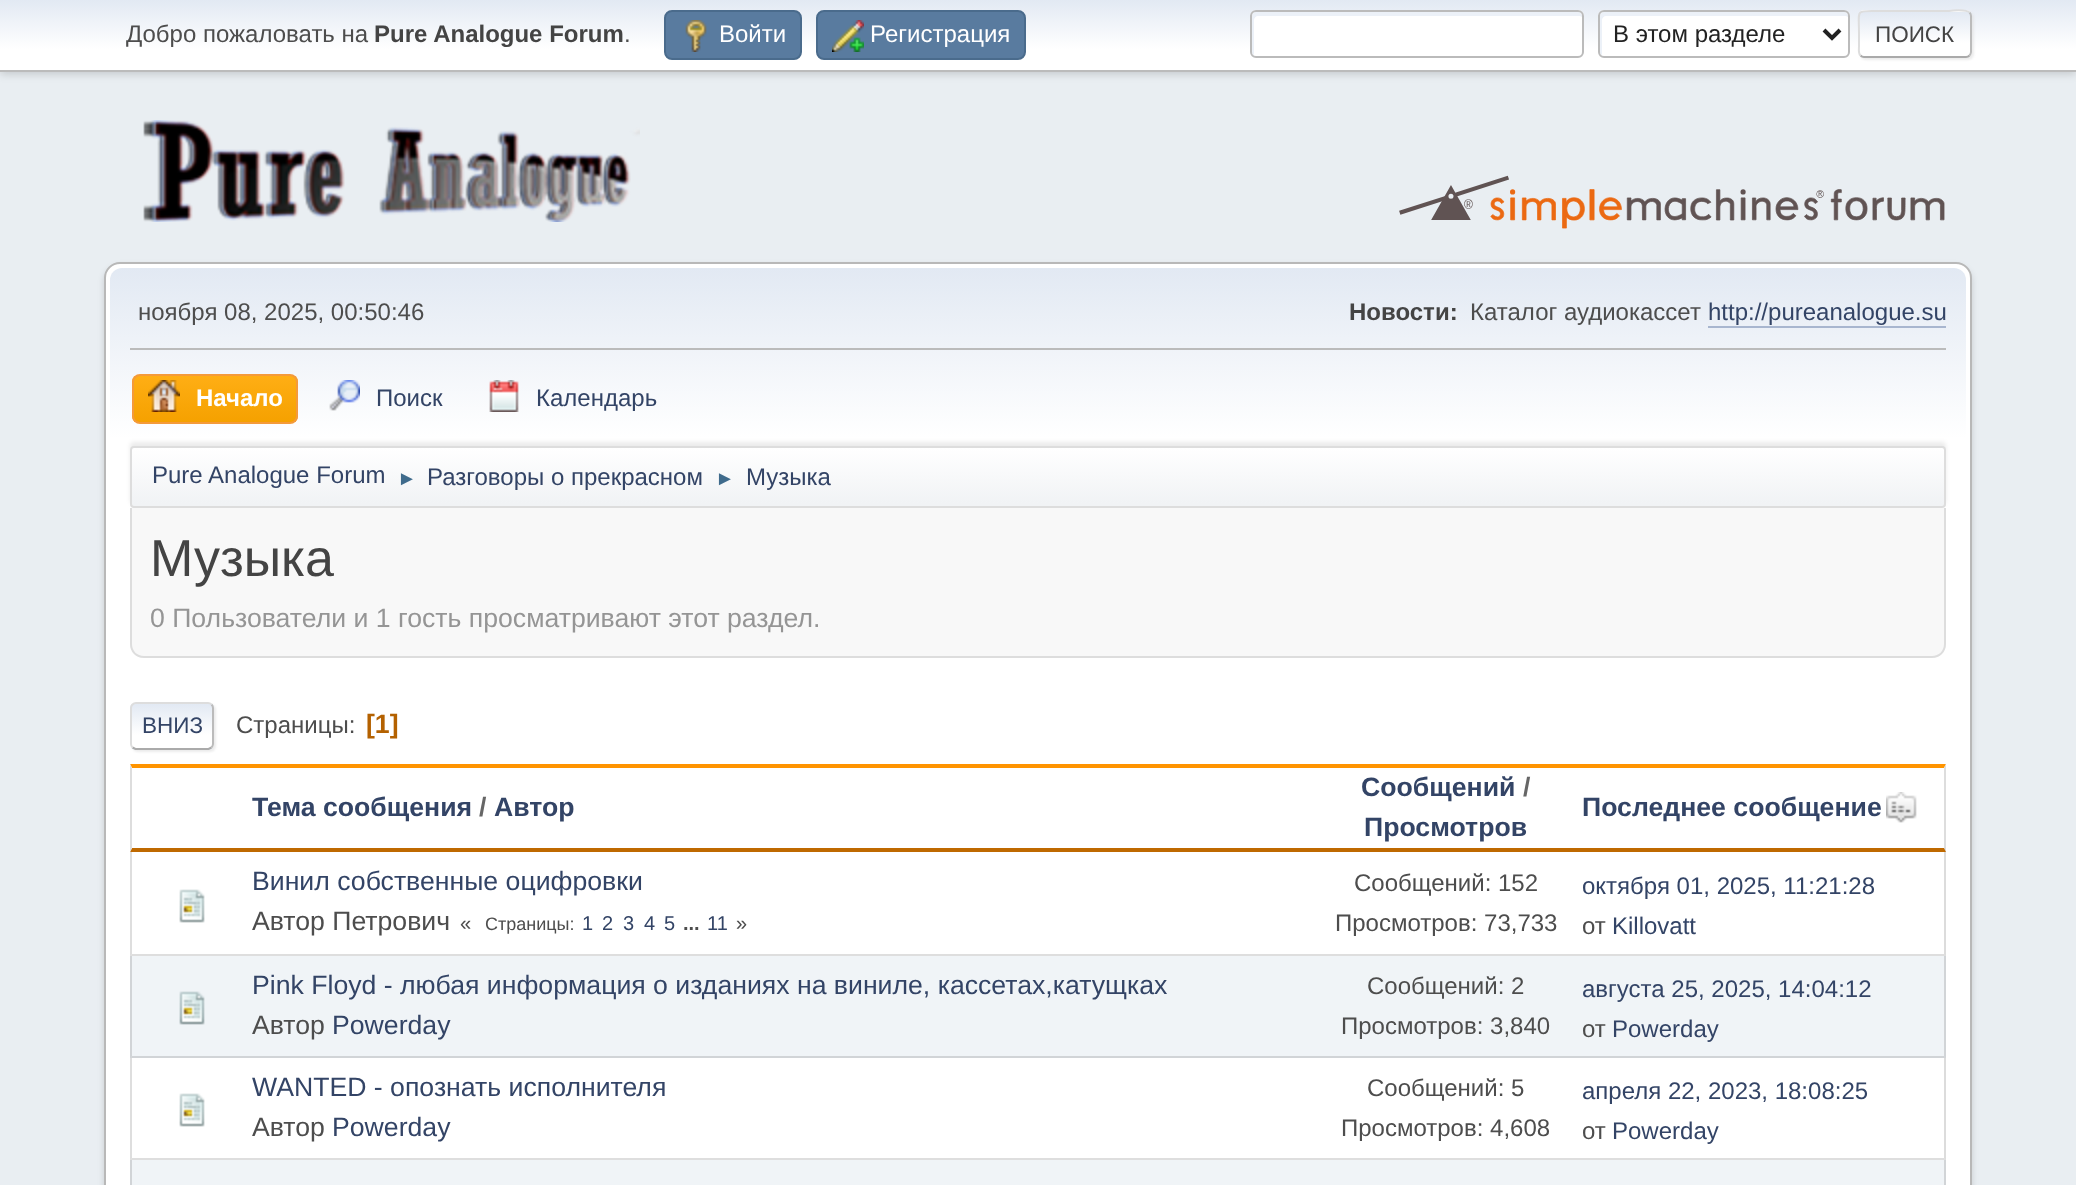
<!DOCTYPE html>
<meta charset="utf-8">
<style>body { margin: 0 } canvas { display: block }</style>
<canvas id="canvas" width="2076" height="1185"></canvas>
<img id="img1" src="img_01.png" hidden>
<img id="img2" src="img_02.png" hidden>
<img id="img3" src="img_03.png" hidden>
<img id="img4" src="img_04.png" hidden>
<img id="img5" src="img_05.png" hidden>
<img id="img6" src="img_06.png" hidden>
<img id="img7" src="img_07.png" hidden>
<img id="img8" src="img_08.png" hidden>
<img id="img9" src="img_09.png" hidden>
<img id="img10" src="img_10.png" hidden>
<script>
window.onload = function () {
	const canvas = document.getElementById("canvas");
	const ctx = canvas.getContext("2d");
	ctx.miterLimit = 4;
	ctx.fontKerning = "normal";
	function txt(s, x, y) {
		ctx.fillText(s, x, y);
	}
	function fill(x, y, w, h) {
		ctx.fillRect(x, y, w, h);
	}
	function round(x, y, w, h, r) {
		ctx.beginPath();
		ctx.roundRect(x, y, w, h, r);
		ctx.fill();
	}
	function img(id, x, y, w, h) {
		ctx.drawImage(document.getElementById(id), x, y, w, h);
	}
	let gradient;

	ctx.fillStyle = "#E9EEF2";
	fill(0, 0, 2076, 1185);
	ctx.fillStyle = "rgba(0, 0, 0, 0.16)";
	ctx.filter = "blur(4px)";
	ctx.beginPath();
	ctx.rect(0, 2, 2076, 72);
	ctx.fill();
	ctx.filter = "none";
	gradient = ctx.createLinearGradient(1038, 0, 1038, 70);
	gradient.addColorStop(0, "#E2E9F3");
	gradient.addColorStop(0.7, "#FFFFFF");
	ctx.fillStyle = gradient;
	fill(0, 0, 2076, 70);
	ctx.fillStyle = "#BBBBBB";
	fill(0, 70, 2076, 2);
	ctx.fillStyle = "#597B9F";
	ctx.beginPath();
	ctx.roundRect(665, 11, 136, 48, 7);
	ctx.fill();
	ctx.strokeStyle = "#4A6B8C";
	ctx.lineWidth = 2;
	ctx.stroke();
	img("img1", 685, 20, 22, 32);
	ctx.beginPath();
	ctx.roundRect(817, 11, 208, 48, 7);
	ctx.fill();
	ctx.stroke();
	img("img2", 832, 20, 32, 32);
	ctx.fillStyle = "#FFFFFF";
	round(1250, 10, 334, 48, 6);
	ctx.fillStyle = "#ECF1F8";
	ctx.beginPath();
	ctx.moveTo(1258, 16);
	ctx.lineTo(1580, 16);
	ctx.lineTo(1582, 17);
	ctx.lineTo(1582, 16);
	ctx.bezierCurveTo(1582, 14, 1580, 12, 1578, 12);
	ctx.lineTo(1256, 12);
	ctx.bezierCurveTo(1254, 12, 1252, 14, 1252, 16);
	ctx.lineTo(1252, 52);
	ctx.bezierCurveTo(1252, 53, 1253, 55, 1254, 55);
	ctx.lineTo(1254, 20);
	ctx.bezierCurveTo(1254, 18, 1256, 16, 1258, 16);
	ctx.closePath();
	ctx.fill();
	ctx.beginPath();
	ctx.roundRect(1251, 11, 332, 46, 5);
	ctx.strokeStyle = "#BBBBBB";
	ctx.stroke();
	ctx.fillStyle = "#FFFFFF";
	round(1598, 10, 252, 48, 6);
	ctx.fillStyle = "#ECF1F8";
	ctx.beginPath();
	ctx.moveTo(1606, 16);
	ctx.lineTo(1846, 16);
	ctx.lineTo(1848, 17);
	ctx.lineTo(1848, 16);
	ctx.bezierCurveTo(1848, 14, 1846, 12, 1844, 12);
	ctx.lineTo(1604, 12);
	ctx.bezierCurveTo(1602, 12, 1600, 14, 1600, 16);
	ctx.lineTo(1600, 52);
	ctx.bezierCurveTo(1600, 53, 1601, 55, 1602, 55);
	ctx.lineTo(1602, 20);
	ctx.bezierCurveTo(1602, 18, 1604, 16, 1606, 16);
	ctx.closePath();
	ctx.fill();
	ctx.beginPath();
	ctx.roundRect(1599, 11, 250, 46, 5);
	ctx.stroke();
	ctx.beginPath();
	ctx.moveTo(1824, 30);
	ctx.lineTo(1832, 38);
	ctx.lineTo(1840, 30);
	ctx.strokeStyle = "#222222";
	ctx.lineWidth = 4;
	ctx.stroke();
	ctx.fillStyle = "rgba(221, 221, 221, 0.57)";
	ctx.filter = "blur(1px)";
	ctx.beginPath();
	ctx.roundRect(1860, 12, 114, 48, 6);
	ctx.fill();
	ctx.filter = "none";
	ctx.save();
	ctx.beginPath();
	ctx.roundRect(1858, 10, 114, 48, 6);
	ctx.clip();
	gradient = ctx.createLinearGradient(1915, -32, 1915, 12);
	gradient.addColorStop(0, "#E2E9F3");
	gradient.addColorStop(0.7, "#FFFFFF");
	ctx.fillStyle = gradient;
	fill(1858, 10, 114, 2);
	gradient = ctx.createLinearGradient(1915, 12, 1915, 56);
	gradient.addColorStop(0, "#E2E9F3");
	gradient.addColorStop(0.7, "#FFFFFF");
	ctx.fillStyle = gradient;
	fill(1858, 12, 114, 44);
	ctx.restore();
	ctx.beginPath();
	ctx.moveTo(1969.5, 12.5);
	ctx.bezierCurveTo(1970.5, 13.5, 1971, 14.5, 1971, 16);
	ctx.lineTo(1971, 52);
	ctx.bezierCurveTo(1971, 53.5, 1970.5, 54.5, 1969.5, 55.5);
	ctx.strokeStyle = "#BBBBBB";
	ctx.lineWidth = 2;
	ctx.stroke();
	ctx.beginPath();
	ctx.moveTo(1969.5, 55.5);
	ctx.bezierCurveTo(1968.5, 56.5, 1967.5, 57, 1966, 57);
	ctx.lineTo(1864, 57);
	ctx.bezierCurveTo(1862.5, 57, 1861.5, 56.5, 1860.5, 55.5);
	ctx.strokeStyle = "#AAAAAA";
	ctx.stroke();
	ctx.beginPath();
	ctx.moveTo(1860.5, 55.5);
	ctx.bezierCurveTo(1858, 53, 1859, 48.5, 1859, 46);
	ctx.lineTo(1859, 34);
	ctx.bezierCurveTo(1859, 8, 1854.5, 11, 1881, 11);
	ctx.lineTo(1949, 11);
	ctx.bezierCurveTo(1949, 11, 1965.5, 8.5, 1969.5, 12.5);
	ctx.strokeStyle = "#DDDDDD";
	ctx.stroke();
	img("img3", 143, 120, 497, 102);
	img("img4", 1399, 175, 546, 54);
	ctx.fillStyle = "rgba(0, 0, 0, 0.14)";
	ctx.filter = "blur(3px)";
	ctx.beginPath();
	ctx.roundRect(104, 266, 1868, 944, 16);
	ctx.fill();
	ctx.filter = "none";
	ctx.fillStyle = "#FFFFFF";
	ctx.beginPath();
	ctx.roundRect(105, 263, 1866, 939, 15);
	ctx.fill();
	ctx.strokeStyle = "#B8B8B8";
	ctx.stroke();
	gradient = ctx.createLinearGradient(1038, 268, 1038, 512);
	gradient.addColorStop(0, "#E2E9F3");
	gradient.addColorStop(0.7, "#FFFFFF");
	ctx.fillStyle = gradient;
	ctx.beginPath();
	ctx.roundRect(110, 268, 1856, 244, [12, 12, 0, 0]);
	ctx.fill();
	ctx.fillStyle = "#BBBBBB";
	fill(130, 348, 1816, 2);
	ctx.fillStyle = "#A8B6CF";
	fill(1708, 326, 238, 2);
	ctx.save();
	ctx.beginPath();
	ctx.roundRect(132, 374, 166, 50, 8);
	ctx.clip();
	gradient = ctx.createLinearGradient(215, 376, 215, 422);
	gradient.addColorStop(0, "#FFAE14");
	gradient.addColorStop(1, "#F5A100");
	ctx.fillStyle = gradient;
	fill(132, 376, 166, 46);
	ctx.restore();
	ctx.beginPath();
	ctx.roundRect(133, 375, 164, 48, 7);
	ctx.strokeStyle = "#F49A3A";
	ctx.stroke();
	img("img5", 148, 380, 32, 32);
	img("img6", 329, 380, 31, 31);
	img("img7", 489, 380, 30, 32);
	ctx.fillStyle = "rgba(0, 0, 0, 0.08)";
	ctx.filter = "blur(2px)";
	ctx.beginPath();
	ctx.roundRect(130, 442, 1816, 62, 4);
	ctx.fill();
	ctx.filter = "none";
	ctx.save();
	ctx.beginPath();
	ctx.roundRect(130, 446, 1816, 62, 4);
	ctx.clip();
	gradient = ctx.createLinearGradient(1038, 448, 1038, 506);
	gradient.addColorStop(0, "#FFFFFF");
	gradient.addColorStop(0.95, "#F1F3F5");
	ctx.fillStyle = gradient;
	fill(130, 448, 1816, 58);
	ctx.restore();
	ctx.beginPath();
	ctx.roundRect(131, 447, 1814, 60, 3);
	ctx.strokeStyle = "#DDDDDD";
	ctx.stroke();
	ctx.fillStyle = "#F8F8F8";
	ctx.beginPath();
	ctx.roundRect(130, 508, 1816, 150, [0, 0, 14, 14]);
	ctx.fill();
	ctx.fillStyle = "#DDDDDD";
	ctx.beginPath();
	ctx.moveTo(130, 508);
	ctx.lineTo(1946, 508);
	ctx.lineTo(1946, 644);
	ctx.bezierCurveTo(1946, 652, 1940, 658, 1932, 658);
	ctx.lineTo(144, 658);
	ctx.bezierCurveTo(136, 658, 130, 652, 130, 644);
	ctx.closePath();
	ctx.moveTo(132, 508);
	ctx.lineTo(1944, 508);
	ctx.lineTo(1944, 644);
	ctx.bezierCurveTo(1944, 651, 1939, 656, 1932, 656);
	ctx.lineTo(144, 656);
	ctx.bezierCurveTo(137, 656, 132, 651, 132, 644);
	ctx.closePath();
	ctx.fill("evenodd");
	ctx.fillStyle = "rgba(221, 221, 221, 0.57)";
	ctx.filter = "blur(1px)";
	ctx.beginPath();
	ctx.roundRect(132, 704, 84, 48, 6);
	ctx.fill();
	ctx.filter = "none";
	ctx.save();
	ctx.beginPath();
	ctx.roundRect(130, 702, 84, 48, 6);
	ctx.clip();
	gradient = ctx.createLinearGradient(172, 704, 172, 748);
	gradient.addColorStop(0, "#E2E9F3");
	gradient.addColorStop(0.7, "#FFFFFF");
	ctx.fillStyle = gradient;
	fill(130, 704, 84, 44);
	gradient = ctx.createLinearGradient(172, 748, 172, 792);
	gradient.addColorStop(0, "#E2E9F3");
	gradient.addColorStop(0.7, "#FFFFFF");
	ctx.fillStyle = gradient;
	fill(130, 748, 84, 2);
	ctx.restore();
	ctx.beginPath();
	ctx.moveTo(211.5, 704.5);
	ctx.bezierCurveTo(212.5, 705.5, 213, 706.5, 213, 708);
	ctx.lineTo(213, 744);
	ctx.bezierCurveTo(213, 745.5, 212.5, 746.5, 211.5, 747.5);
	ctx.strokeStyle = "#BBBBBB";
	ctx.stroke();
	ctx.beginPath();
	ctx.moveTo(211.5, 747.5);
	ctx.lineTo(208.5, 749);
	ctx.lineTo(135.5, 749);
	ctx.lineTo(132.5, 747.5);
	ctx.strokeStyle = "#AAAAAA";
	ctx.stroke();
	ctx.beginPath();
	ctx.moveTo(132.5, 747.5);
	ctx.bezierCurveTo(131.5, 746.5, 131, 745.5, 131, 744);
	ctx.lineTo(131, 708);
	ctx.bezierCurveTo(131, 706.5, 131.5, 705.5, 132.5, 704.5);
	ctx.bezierCurveTo(133.5, 703.5, 134.5, 703, 136, 703);
	ctx.lineTo(208, 703);
	ctx.bezierCurveTo(209.5, 703, 210.5, 703.5, 211.5, 704.5);
	ctx.strokeStyle = "#DDDDDD";
	ctx.stroke();
	ctx.fillStyle = "#FF9400";
	ctx.beginPath();
	ctx.moveTo(130, 764);
	ctx.lineTo(1946, 764);
	ctx.lineTo(1944, 768);
	ctx.lineTo(132, 768);
	ctx.closePath();
	ctx.fill();
	ctx.fillStyle = "#DDDDDD";
	ctx.beginPath();
	ctx.moveTo(1946, 764);
	ctx.lineTo(1946, 852);
	ctx.lineTo(1944, 848);
	ctx.lineTo(1944, 768);
	ctx.closePath();
	ctx.fill();
	ctx.fillStyle = "#BF6900";
	ctx.beginPath();
	ctx.moveTo(1946, 852);
	ctx.lineTo(130, 852);
	ctx.lineTo(132, 848);
	ctx.lineTo(1944, 848);
	ctx.closePath();
	ctx.fill();
	ctx.fillStyle = "#DDDDDD";
	ctx.beginPath();
	ctx.moveTo(130, 852);
	ctx.lineTo(130, 764);
	ctx.lineTo(132, 768);
	ctx.lineTo(132, 848);
	ctx.closePath();
	ctx.fill();
	img("img8", 1886, 792, 31, 31);
	ctx.fillStyle = "#DCDCDC";
	ctx.beginPath();
	ctx.moveTo(1946, 852);
	ctx.lineTo(1946, 956);
	ctx.lineTo(1944, 954);
	ctx.lineTo(1944, 852);
	ctx.closePath();
	ctx.fill();
	ctx.fillStyle = "rgba(0, 0, 0, 0.13)";
	ctx.beginPath();
	ctx.moveTo(1946, 956);
	ctx.lineTo(130, 956);
	ctx.lineTo(132, 954);
	ctx.lineTo(1944, 954);
	ctx.closePath();
	ctx.fill();
	ctx.beginPath();
	ctx.moveTo(130, 956);
	ctx.lineTo(130, 852);
	ctx.lineTo(132, 852);
	ctx.lineTo(132, 954);
	ctx.closePath();
	ctx.fill();
	img("img9", 179, 889, 26, 34);
	ctx.fillStyle = "#F0F4F7";
	fill(130, 956, 1816, 102);
	ctx.fillStyle = "#D1D4D7";
	ctx.beginPath();
	ctx.moveTo(1946, 956);
	ctx.lineTo(1946, 1058);
	ctx.lineTo(1944, 1056);
	ctx.lineTo(1944, 956);
	ctx.closePath();
	ctx.fill();
	ctx.fillStyle = "rgba(0, 0, 0, 0.13)";
	ctx.beginPath();
	ctx.moveTo(1946, 1058);
	ctx.lineTo(130, 1058);
	ctx.lineTo(132, 1056);
	ctx.lineTo(1944, 1056);
	ctx.closePath();
	ctx.fill();
	ctx.beginPath();
	ctx.moveTo(130, 1058);
	ctx.lineTo(130, 956);
	ctx.lineTo(132, 956);
	ctx.lineTo(132, 1056);
	ctx.closePath();
	ctx.fill();
	img("img10", 179, 991, 26, 34);
	ctx.fillStyle = "#DCDCDC";
	ctx.beginPath();
	ctx.moveTo(1946, 1058);
	ctx.lineTo(1946, 1160);
	ctx.lineTo(1944, 1158);
	ctx.lineTo(1944, 1058);
	ctx.closePath();
	ctx.fill();
	ctx.fillStyle = "rgba(0, 0, 0, 0.13)";
	ctx.beginPath();
	ctx.moveTo(1946, 1160);
	ctx.lineTo(130, 1160);
	ctx.lineTo(132, 1158);
	ctx.lineTo(1944, 1158);
	ctx.closePath();
	ctx.fill();
	ctx.beginPath();
	ctx.moveTo(130, 1160);
	ctx.lineTo(130, 1058);
	ctx.lineTo(132, 1058);
	ctx.lineTo(132, 1158);
	ctx.closePath();
	ctx.fill();
	img("img9", 179, 1093, 26, 34);
	ctx.fillStyle = "#F0F4F7";
	fill(132, 1160, 1812, 25);
	ctx.fillStyle = "#D1D4D7";
	ctx.beginPath();
	ctx.moveTo(1946, 1160);
	ctx.lineTo(1946, 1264);
	ctx.lineTo(1944, 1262);
	ctx.lineTo(1944, 1160);
	ctx.closePath();
	ctx.fill();
	ctx.beginPath();
	ctx.moveTo(130, 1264);
	ctx.lineTo(130, 1160);
	ctx.lineTo(132, 1160);
	ctx.lineTo(132, 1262);
	ctx.closePath();
	ctx.fill();
	ctx.font = "24px Liberation Sans";
	ctx.fillStyle = "#4D4D4D";
	txt("Добро пожаловать на", 126, 42);
	ctx.font = "bold 24px Liberation Sans";
	ctx.fillStyle = "#444444";
	txt("Pure Analogue Forum", 374, 42);
	ctx.font = "24px Liberation Sans";
	ctx.fillStyle = "#4D4D4D";
	txt(".", 624, 42);
	ctx.fillStyle = "#FFFFFF";
	txt("Войти", 719, 42);
	txt("Регистрация", 870, 42);
	ctx.fillStyle = "#222222";
	txt("В этом разделе", 1613, 42);
	ctx.font = "22.5px Liberation Sans";
	ctx.fillStyle = "#444444";
	txt("ПОИСК", 1875, 42);
	ctx.font = "24px Liberation Sans";
	ctx.fillStyle = "#4D4D4D";
	txt("ноября 08, 2025, 00:50:46", 138, 320);
	ctx.font = "bold 24px Liberation Sans";
	ctx.fillStyle = "#444444";
	txt("Новости:", 1349, 320);
	ctx.font = "24px Liberation Sans";
	ctx.fillStyle = "#4D4D4D";
	txt("Каталог аудиокассет", 1470, 320);
	ctx.fillStyle = "#334466";
	txt("http://pureanalogue.su", 1708, 320);
	ctx.font = "bold 24px Liberation Sans";
	ctx.fillStyle = "#FFFFFF";
	txt("Начало", 196, 406);
	ctx.font = "24px Liberation Sans";
	ctx.fillStyle = "#334466";
	txt("Поиск", 376, 406);
	txt("Календарь", 536, 406);
	txt("Pure Analogue Forum", 152, 483);
	ctx.font = "20px Liberation Sans";
	ctx.fillStyle = "#3F6B8C";
	txt("►", 397, 485);
	ctx.font = "24px Liberation Sans";
	ctx.fillStyle = "#334466";
	txt("Разговоры о прекрасном", 427, 485);
	ctx.font = "20px Liberation Sans";
	ctx.fillStyle = "#3F6B8C";
	txt("►", 715, 485);
	ctx.font = "24px Liberation Sans";
	ctx.fillStyle = "#334466";
	txt("Музыка", 746, 485);
	ctx.font = "52px Liberation Sans";
	ctx.fillStyle = "#444444";
	txt("Музыка", 150, 576);
	ctx.font = "26.65px Liberation Sans";
	ctx.fillStyle = "#959595";
	txt("0 Пользователи и 1 гость просматривают этот раздел.", 150, 627);
	ctx.font = "22.5px Liberation Sans";
	ctx.fillStyle = "#334466";
	txt("ВНИЗ", 142, 733);
	ctx.font = "24px Liberation Sans";
	ctx.fillStyle = "#4D4D4D";
	txt("Страницы:", 236, 733);
	ctx.font = "bold 26.65px Liberation Sans";
	ctx.fillStyle = "#B46100";
	txt("[1]", 366, 733);
	ctx.fillStyle = "#334466";
	txt("Тема сообщения", 252, 816);
	ctx.fillStyle = "#666666";
	txt("/", 479, 816);
	ctx.fillStyle = "#334466";
	txt("Автор", 494, 816);
	txt("Сообщений", 1361, 796);
	ctx.fillStyle = "#666666";
	txt("/", 1523, 796);
	ctx.fillStyle = "#334466";
	txt("Просмотров", 1364, 836);
	txt("Последнее сообщение", 1582, 816);
	ctx.font = "26.65px Liberation Sans";
	txt("Винил собственные оцифровки", 252, 890);
	ctx.fillStyle = "#4D4D4D";
	txt("Автор Петрович", 252, 930);
	ctx.font = "20px Liberation Sans";
	txt("«", 460, 930);
	ctx.font = "18px Liberation Sans";
	txt("Страницы:", 485, 930);
	ctx.font = "20px Liberation Sans";
	ctx.fillStyle = "#334466";
	txt("1", 582, 930);
	txt("2", 602, 930);
	txt("3", 623, 930);
	txt("4", 644, 930);
	txt("5", 664, 930);
	ctx.font = "bold 20px Liberation Sans";
	ctx.fillStyle = "#4D4D4D";
	txt("...", 683, 930);
	ctx.font = "20px Liberation Sans";
	ctx.fillStyle = "#334466";
	txt("11", 707, 930);
	ctx.fillStyle = "#4D4D4D";
	txt("»", 736, 930);
	ctx.font = "24px Liberation Sans";
	txt("Сообщений: 152", 1354, 891);
	txt("Просмотров: 73,733", 1335, 931);
	ctx.fillStyle = "#334466";
	txt("октября 01, 2025, 11:21:28", 1582, 894);
	ctx.fillStyle = "#4D4D4D";
	txt("от", 1582, 934);
	ctx.fillStyle = "#334466";
	txt("Killovatt", 1612, 934);
	ctx.font = "26.65px Liberation Sans";
	txt("Pink Floyd - любая информация о изданиях на виниле, кассетах,катущках", 252, 994);
	ctx.fillStyle = "#4D4D4D";
	txt("Автор", 252, 1034);
	ctx.fillStyle = "#334466";
	txt("Powerday", 332, 1034);
	ctx.font = "24px Liberation Sans";
	ctx.fillStyle = "#4D4D4D";
	txt("Сообщений: 2", 1367, 994);
	txt("Просмотров: 3,840", 1341, 1034);
	ctx.fillStyle = "#334466";
	txt("августа 25, 2025, 14:04:12", 1582, 997);
	ctx.fillStyle = "#4D4D4D";
	txt("от", 1582, 1037);
	ctx.fillStyle = "#334466";
	txt("Powerday", 1612, 1037);
	ctx.font = "26.65px Liberation Sans";
	txt("WANTED - опознать исполнителя", 252, 1096);
	ctx.fillStyle = "#4D4D4D";
	txt("Автор", 252, 1136);
	ctx.fillStyle = "#334466";
	txt("Powerday", 332, 1136);
	ctx.font = "24px Liberation Sans";
	ctx.fillStyle = "#4D4D4D";
	txt("Сообщений: 5", 1367, 1096);
	txt("Просмотров: 4,608", 1341, 1136);
	ctx.fillStyle = "#334466";
	txt("апреля 22, 2023, 18:08:25", 1582, 1099);
	ctx.fillStyle = "#4D4D4D";
	txt("от", 1582, 1139);
	ctx.fillStyle = "#334466";
	txt("Powerday", 1612, 1139);
};
</script>
